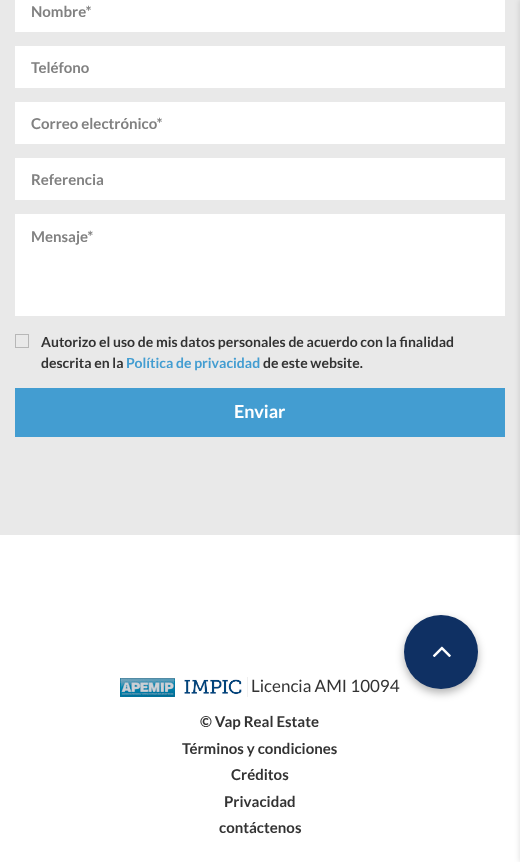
<!DOCTYPE html>
<meta charset="utf-8">
<style>body { margin: 0 } canvas { display: block }</style>
<canvas id="canvas" width="520" height="862"></canvas>
<img id="img1" src="img_01.png" hidden>
<img id="img2" src="img_02.png" hidden>
<img id="img3" src="img_03.png" hidden>
<script>
window.onload = function () {
	const canvas = document.getElementById("canvas");
	const ctx = canvas.getContext("2d");
	ctx.miterLimit = 4;
	ctx.fontKerning = "normal";
	function txt(s, x, y) {
		ctx.fillText(s, x, y);
	}
	function fill(x, y, w, h) {
		ctx.fillRect(x, y, w, h);
	}
	function img(id, x, y, w, h) {
		ctx.drawImage(document.getElementById(id), x, y, w, h);
	}

	ctx.fillStyle = "#E9E9E9";
	fill(0, 0, 520, 862);
	ctx.fillStyle = "#FFFFFF";
	fill(15, 0, 490, 32);
	fill(15, 46, 490, 42);
	fill(15, 102, 490, 42);
	fill(15, 158, 490, 42);
	fill(15, 214, 490, 102);
	ctx.strokeStyle = "#B7B7B7";
	ctx.strokeRect(15.5, 334.5, 13, 13);
	ctx.fillStyle = "#439DD1";
	fill(15, 388, 490, 49);
	ctx.fillStyle = "#FFFFFF";
	fill(0, 535, 520, 327);
	ctx.fillStyle = "rgba(0, 0, 0, 0.3)";
	ctx.filter = "blur(4px)";
	ctx.beginPath();
	ctx.roundRect(404, 619, 74, 74, 37);
	ctx.fill();
	ctx.filter = "none";
	ctx.fillStyle = "#0F3063";
	ctx.beginPath();
	ctx.arc(441, 652, 37, 0, Math.PI * 2);
	ctx.fill();
	img("img1", 432, 646, 19, 11);
	img("img2", 120, 678, 55, 19);
	img("img3", 184, 677, 64, 20);
	ctx.fillStyle = "rgba(0, 0, 0, 0.1)";
	ctx.filter = "blur(2.5px)";
	ctx.beginPath();
	ctx.rect(519, 0, 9, 862);
	ctx.fill();
	ctx.filter = "none";
	ctx.font = "bold 15px Lato";
	ctx.fillStyle = "#818181";
	txt("Nombre*", 31, 17);
	txt("Teléfono", 31, 73);
	txt("Correo electrónico*", 31, 129);
	txt("Referencia", 31, 185);
	txt("Mensaje*", 31, 242);
	ctx.font = "bold 14px Lato";
	ctx.fillStyle = "#333333";
	txt("Autorizo el uso de mis datos personales de acuerdo con la finalidad", 41, 347);
	txt("descrita en la", 41, 368);
	ctx.fillStyle = "#439DD1";
	txt("Política de privacidad", 126, 368);
	ctx.fillStyle = "#333333";
	txt("de este website.", 263, 368);
	ctx.font = "bold 18px Lato";
	ctx.fillStyle = "#FFFFFF";
	txt("Enviar", 234, 418);
	ctx.font = "17px Lato";
	ctx.fillStyle = "#333333";
	txt("Licencia AMI 10094", 251, 692);
	ctx.font = "bold 15px Lato";
	txt("© Vap Real Estate", 200, 727);
	txt("Términos y condiciones", 182, 754);
	txt("Créditos", 231, 780);
	txt("Privacidad", 224, 807);
	txt("contáctenos", 219, 833);
};
</script>
